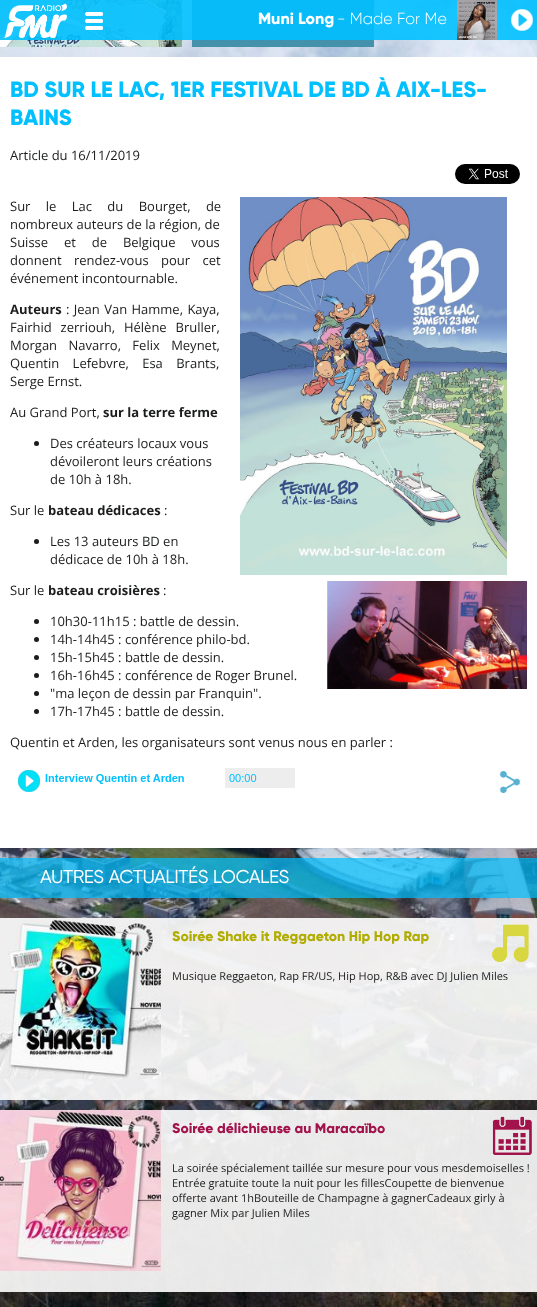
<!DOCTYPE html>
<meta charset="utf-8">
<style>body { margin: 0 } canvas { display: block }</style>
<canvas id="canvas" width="537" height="1307"></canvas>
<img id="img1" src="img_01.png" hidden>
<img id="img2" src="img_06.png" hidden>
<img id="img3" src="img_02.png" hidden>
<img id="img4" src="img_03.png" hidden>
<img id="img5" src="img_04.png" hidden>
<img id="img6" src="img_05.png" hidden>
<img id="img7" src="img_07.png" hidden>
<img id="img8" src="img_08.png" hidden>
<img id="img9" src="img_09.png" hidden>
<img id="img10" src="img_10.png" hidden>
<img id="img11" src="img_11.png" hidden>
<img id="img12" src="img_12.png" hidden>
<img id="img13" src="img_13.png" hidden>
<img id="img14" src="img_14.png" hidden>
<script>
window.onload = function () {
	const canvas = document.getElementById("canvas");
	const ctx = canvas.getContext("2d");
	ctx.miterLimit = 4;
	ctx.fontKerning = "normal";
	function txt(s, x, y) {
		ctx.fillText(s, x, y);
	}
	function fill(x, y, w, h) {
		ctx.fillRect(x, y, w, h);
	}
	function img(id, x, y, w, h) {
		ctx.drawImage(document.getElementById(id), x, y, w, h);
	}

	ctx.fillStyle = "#FFFFFF";
	fill(0, 0, 537, 1307);
	img("img1", 0, 0, 537, 1307);
	img("img2", 0, 0, 182, 47);
	ctx.fillStyle = "#4391AA";
	fill(192, 0, 182, 47);
	ctx.fillStyle = "rgba(0, 192, 255, 0.9)";
	fill(0, 0, 537, 40);
	img("img3", 4, 3, 63, 35);
	img("img4", 85, 12, 18, 18);
	img("img5", 457, 0, 40, 40);
	img("img6", 511, 9, 22, 22);
	ctx.fillStyle = "#FFFFFF";
	fill(0, 57, 537, 791);
	img("img7", 455, 164, 65, 20);
	img("img8", 240, 197, 267, 378);
	ctx.fillStyle = "#1B1C1C";
	ctx.beginPath();
	ctx.arc(36.5, 443.5, 2.5, 0, Math.PI * 2);
	ctx.fill();
	ctx.beginPath();
	ctx.arc(36.5, 541.5, 2.5, 0, Math.PI * 2);
	ctx.fill();
	img("img9", 327, 581, 200, 108);
	ctx.beginPath();
	ctx.arc(36.5, 621.5, 2.5, 0, Math.PI * 2);
	ctx.fill();
	ctx.beginPath();
	ctx.arc(36.5, 639.5, 2.5, 0, Math.PI * 2);
	ctx.fill();
	ctx.beginPath();
	ctx.arc(36.5, 657.5, 2.5, 0, Math.PI * 2);
	ctx.fill();
	ctx.beginPath();
	ctx.arc(36.5, 675.5, 2.5, 0, Math.PI * 2);
	ctx.fill();
	ctx.beginPath();
	ctx.arc(36.5, 693.5, 2.5, 0, Math.PI * 2);
	ctx.fill();
	ctx.beginPath();
	ctx.arc(36.5, 711.5, 2.5, 0, Math.PI * 2);
	ctx.fill();
	img("img10", 18, 768, 503, 25);
	ctx.fillStyle = "rgba(0, 192, 255, 0.7)";
	fill(0, 858, 537, 40);
	ctx.fillStyle = "rgba(255, 255, 255, 0.9)";
	fill(0, 918, 537, 182);
	img("img11", 0, 918, 161, 161);
	img("img12", 492, 924, 37, 39);
	fill(0, 1110, 537, 182);
	img("img13", 0, 1110, 161, 161);
	img("img14", 492, 1116, 40, 39);
	ctx.font = "800 16px Gilroy";
	ctx.fillStyle = "#FFFFFF";
	txt("Muni Long", 258, 24);
	ctx.font = "300 16px Gilroy";
	txt("- Made For Me", 337, 24);
	ctx.font = "800 22px Gilroy";
	ctx.fillStyle = "#00C0FF";
	txt("BD SUR LE LAC, 1ER FESTIVAL DE BD À AIX-LES-", 10, 97);
	txt("BAINS", 10, 125);
	ctx.font = "13px Open Sans";
	ctx.fillStyle = "#1B1C1C";
	txt("Article du 16/11/2019", 10, 160);
	ctx.wordSpacing = "12px";
	txt("Sur le Lac du Bourget, de", 10, 211);
	ctx.wordSpacing = "0px";
	txt("nombreux auteurs de la région, de", 10, 229);
	ctx.wordSpacing = "12.5px";
	txt("Suisse et de Belgique vous", 10, 247);
	ctx.wordSpacing = "9px";
	txt("donnent rendez-vous pour cet", 10, 265);
	ctx.wordSpacing = "0px";
	txt("événement incontournable.", 10, 283);
	ctx.font = "bold 13px Open Sans";
	txt("Auteurs", 10, 314);
	ctx.wordSpacing = "1px";
	ctx.font = "13px Open Sans";
	txt(": Jean Van Hamme, Kaya,", 66, 314);
	ctx.wordSpacing = "5.5px";
	txt("Fairhid zerriouh, Hélène Bruller,", 10, 332);
	ctx.wordSpacing = "8px";
	txt("Morgan Navarro, Felix Meynet,", 10, 350);
	ctx.wordSpacing = "10px";
	txt("Quentin Lefebvre, Esa Brants,", 10, 368);
	ctx.wordSpacing = "0px";
	txt("Serge Ernst.", 10, 386);
	txt("Au Grand Port,", 10, 417);
	ctx.font = "bold 13px Open Sans";
	txt("sur la terre ferme", 103, 417);
	ctx.font = "13px Open Sans";
	txt("Des créateurs locaux vous", 50, 448);
	txt("dévoileront leurs créations", 50, 466);
	txt("de 10h à 18h.", 50, 484);
	txt("Sur le", 10, 515);
	ctx.font = "bold 13px Open Sans";
	txt("bateau dédicaces", 48, 515);
	ctx.font = "13px Open Sans";
	txt(":", 164, 515);
	txt("Les 13 auteurs BD en", 50, 546);
	txt("dédicace de 10h à 18h.", 50, 564);
	txt("Sur le", 10, 595);
	ctx.font = "bold 13px Open Sans";
	txt("bateau croisières", 48, 595);
	ctx.font = "13px Open Sans";
	txt(":", 163, 595);
	txt("10h30-11h15 : battle de dessin.", 50, 626);
	txt("14h-14h45 : conférence philo-bd.", 50, 644);
	txt("15h-15h45 : battle de dessin.", 50, 662);
	txt("16h-16h45 : conférence de Roger Brunel.", 50, 680);
	txt("\"ma leçon de dessin par Franquin\".", 50, 698);
	txt("17h-17h45 : battle de dessin.", 50, 716);
	txt("Quentin et Arden, les organisateurs sont venus nous en parler :", 10, 747);
	ctx.font = "bold 18px Gilroy";
	ctx.fillStyle = "#FFFFFF";
	txt("AUTRES ACTUALITÉS LOCALES", 40, 883);
	ctx.font = "800 14px Gilroy";
	ctx.fillStyle = "#B0AC00";
	txt("Soirée Shake it Reggaeton Hip Hop Rap", 172, 941);
	ctx.font = "11px Open Sans";
	ctx.fillStyle = "#1B1C1C";
	txt("Musique Reggaeton, Rap FR/US, Hip Hop, R&B avec DJ Julien Miles", 172, 980);
	ctx.font = "800 14px Gilroy";
	ctx.fillStyle = "#A2134C";
	txt("Soirée délichieuse au Maracaïbo", 172, 1133);
	ctx.font = "11px Open Sans";
	ctx.fillStyle = "#1B1C1C";
	txt("La soirée spécialement taillée sur mesure pour vous mesdemoiselles !", 172, 1172);
	txt("Entrée gratuite toute la nuit pour les fillesCoupette de bienvenue", 172, 1187);
	txt("offerte avant 1hBouteille de Champagne à gagnerCadeaux girly à", 172, 1202);
	txt("gagner Mix par Julien Miles", 172, 1217);
};
</script>
